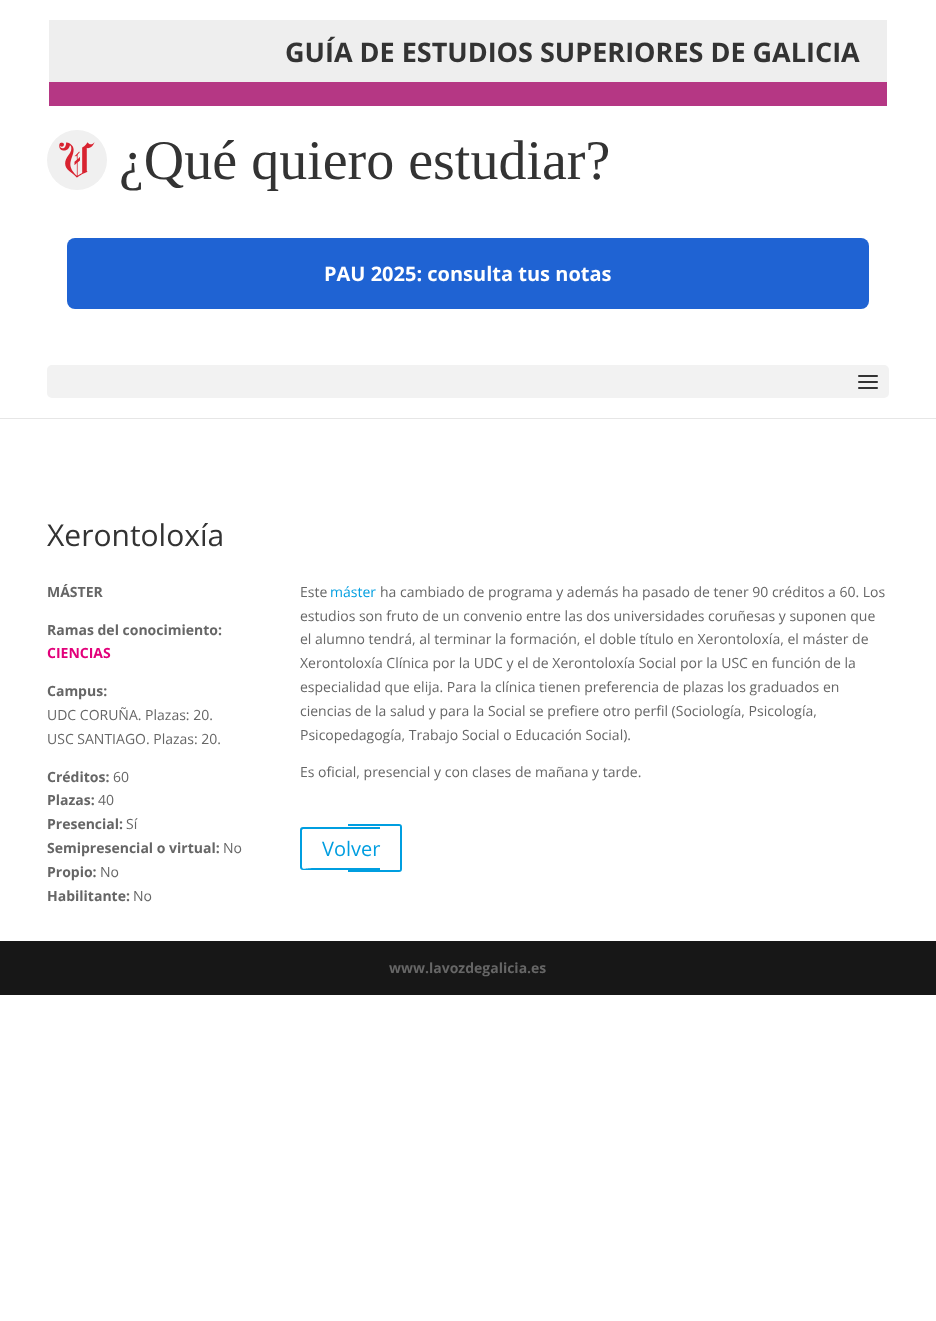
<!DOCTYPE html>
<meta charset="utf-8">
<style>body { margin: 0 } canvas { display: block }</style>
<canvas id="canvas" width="936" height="1321"></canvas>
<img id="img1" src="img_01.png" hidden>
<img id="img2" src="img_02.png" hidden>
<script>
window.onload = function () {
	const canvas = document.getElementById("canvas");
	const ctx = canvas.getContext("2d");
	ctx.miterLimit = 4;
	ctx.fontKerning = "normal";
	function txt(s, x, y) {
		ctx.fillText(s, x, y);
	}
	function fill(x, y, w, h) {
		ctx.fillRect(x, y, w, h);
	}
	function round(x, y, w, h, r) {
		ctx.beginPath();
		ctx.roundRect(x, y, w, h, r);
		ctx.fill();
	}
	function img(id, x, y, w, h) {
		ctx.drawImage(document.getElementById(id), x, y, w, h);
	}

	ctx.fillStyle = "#FFFFFF";
	fill(0, 0, 936, 1321);
	ctx.fillStyle = "#E6E6E6";
	fill(0, 418, 936, 1);
	ctx.fillStyle = "#EEEEEE";
	fill(49, 20, 838, 62);
	ctx.fillStyle = "#B53784";
	fill(49, 82, 838, 24);
	img("img1", 47, 130, 60, 60);
	ctx.fillStyle = "#1F63D3";
	round(67, 238, 802, 71, 8);
	ctx.fillStyle = "#F2F2F2";
	round(47, 365, 842, 33, 5);
	img("img2", 858, 375, 20, 14);
	ctx.fillStyle = "#009EE0";
	ctx.beginPath();
	ctx.moveTo(303, 827);
	ctx.lineTo(380, 827);
	ctx.lineTo(380, 870);
	ctx.lineTo(303, 870);
	ctx.bezierCurveTo(301, 870, 300, 869, 300, 867);
	ctx.lineTo(300, 830);
	ctx.bezierCurveTo(300, 828, 301, 827, 303, 827);
	ctx.closePath();
	ctx.moveTo(303, 829);
	ctx.lineTo(380, 829);
	ctx.lineTo(380, 868);
	ctx.lineTo(316, 868);
	ctx.bezierCurveTo(301, 868, 302, 872, 302, 861);
	ctx.lineTo(302, 830);
	ctx.closePath();
	ctx.fill("evenodd");
	ctx.beginPath();
	ctx.moveTo(348, 824);
	ctx.lineTo(399, 824);
	ctx.bezierCurveTo(401, 824, 402, 825, 402, 827);
	ctx.lineTo(402, 869);
	ctx.bezierCurveTo(402, 871, 401, 872, 399, 872);
	ctx.lineTo(348, 872);
	ctx.closePath();
	ctx.moveTo(348, 826);
	ctx.lineTo(399, 826);
	ctx.bezierCurveTo(400, 826, 400, 826, 400, 827);
	ctx.lineTo(400, 869);
	ctx.bezierCurveTo(400, 870, 400, 870, 399, 870);
	ctx.lineTo(348, 870);
	ctx.closePath();
	ctx.fill("evenodd");
	ctx.fillStyle = "#171717";
	fill(0, 941, 936, 54);
	ctx.font = "bold 27px Open Sans";
	ctx.fillStyle = "#333333";
	txt("GUÍA DE ESTUDIOS SUPERIORES DE GALICIA", 285, 62);
	ctx.font = "56px Liberation Serif";
	txt("¿Qué quiero estudiar?", 119, 179);
	ctx.font = "bold 20px Open Sans";
	ctx.fillStyle = "#FFFFFF";
	txt("PAU 2025: consulta tus notas", 324, 281);
	ctx.font = "30px Open Sans";
	ctx.fillStyle = "#333333";
	txt("Xerontoloxía", 47, 546);
	ctx.font = "bold 14px Open Sans";
	ctx.fillStyle = "#666666";
	txt("MÁSTER", 47, 597);
	txt("Ramas del conocimiento:", 47, 635);
	ctx.fillStyle = "#E2007A";
	txt("CIENCIAS", 47, 658);
	ctx.fillStyle = "#666666";
	txt("Campus:", 47, 696);
	ctx.font = "14px Open Sans";
	txt("UDC CORUÑA. Plazas: 20.", 47, 720);
	txt("USC SANTIAGO. Plazas: 20.", 47, 744);
	ctx.font = "bold 14px Open Sans";
	txt("Créditos:", 47, 782);
	ctx.font = "14px Open Sans";
	txt("60", 113, 782);
	ctx.font = "bold 14px Open Sans";
	txt("Plazas:", 47, 805);
	ctx.font = "14px Open Sans";
	txt("40", 98, 805);
	ctx.font = "bold 14px Open Sans";
	txt("Presencial:", 47, 829);
	ctx.font = "14px Open Sans";
	txt("Sí", 126, 829);
	ctx.font = "bold 14px Open Sans";
	txt("Semipresencial o virtual:", 47, 853);
	ctx.font = "14px Open Sans";
	txt("No", 223, 853);
	ctx.font = "bold 14px Open Sans";
	txt("Propio:", 47, 877);
	ctx.font = "14px Open Sans";
	txt("No", 100, 877);
	ctx.font = "bold 14px Open Sans";
	txt("Habilitante:", 47, 901);
	ctx.font = "14px Open Sans";
	txt("No", 133, 901);
	txt("Este", 300, 597);
	ctx.fillStyle = "#009EE0";
	txt("máster", 330, 597);
	ctx.fillStyle = "#666666";
	txt("ha cambiado de programa y además ha pasado de tener 90 créditos a 60. Los", 380, 597);
	txt("estudios son fruto de un convenio entre las dos universidades coruñesas y suponen que", 300, 621);
	txt("el alumno tendrá, al terminar la formación, el doble título en Xerontoloxía, el máster de", 300, 644);
	txt("Xerontoloxía Clínica por la UDC y el de Xerontoloxía Social por la USC en función de la", 300, 668);
	txt("especialidad que elija. Para la clínica tienen preferencia de plazas los graduados en", 300, 692);
	txt("ciencias de la salud y para la Social se prefiere otro perfil (Sociología, Psicología,", 300, 716);
	txt("Psicopedagogía, Trabajo Social o Educación Social).", 300, 740);
	txt("Es oficial, presencial y con clases de mañana y tarde.", 300, 777);
	ctx.font = "20px Open Sans";
	ctx.fillStyle = "#009EE0";
	txt("Volver", 322, 856);
	ctx.font = "bold 14px Open Sans";
	ctx.fillStyle = "#666666";
	txt("www.lavozdegalicia.es", 389, 973);
};
</script>
